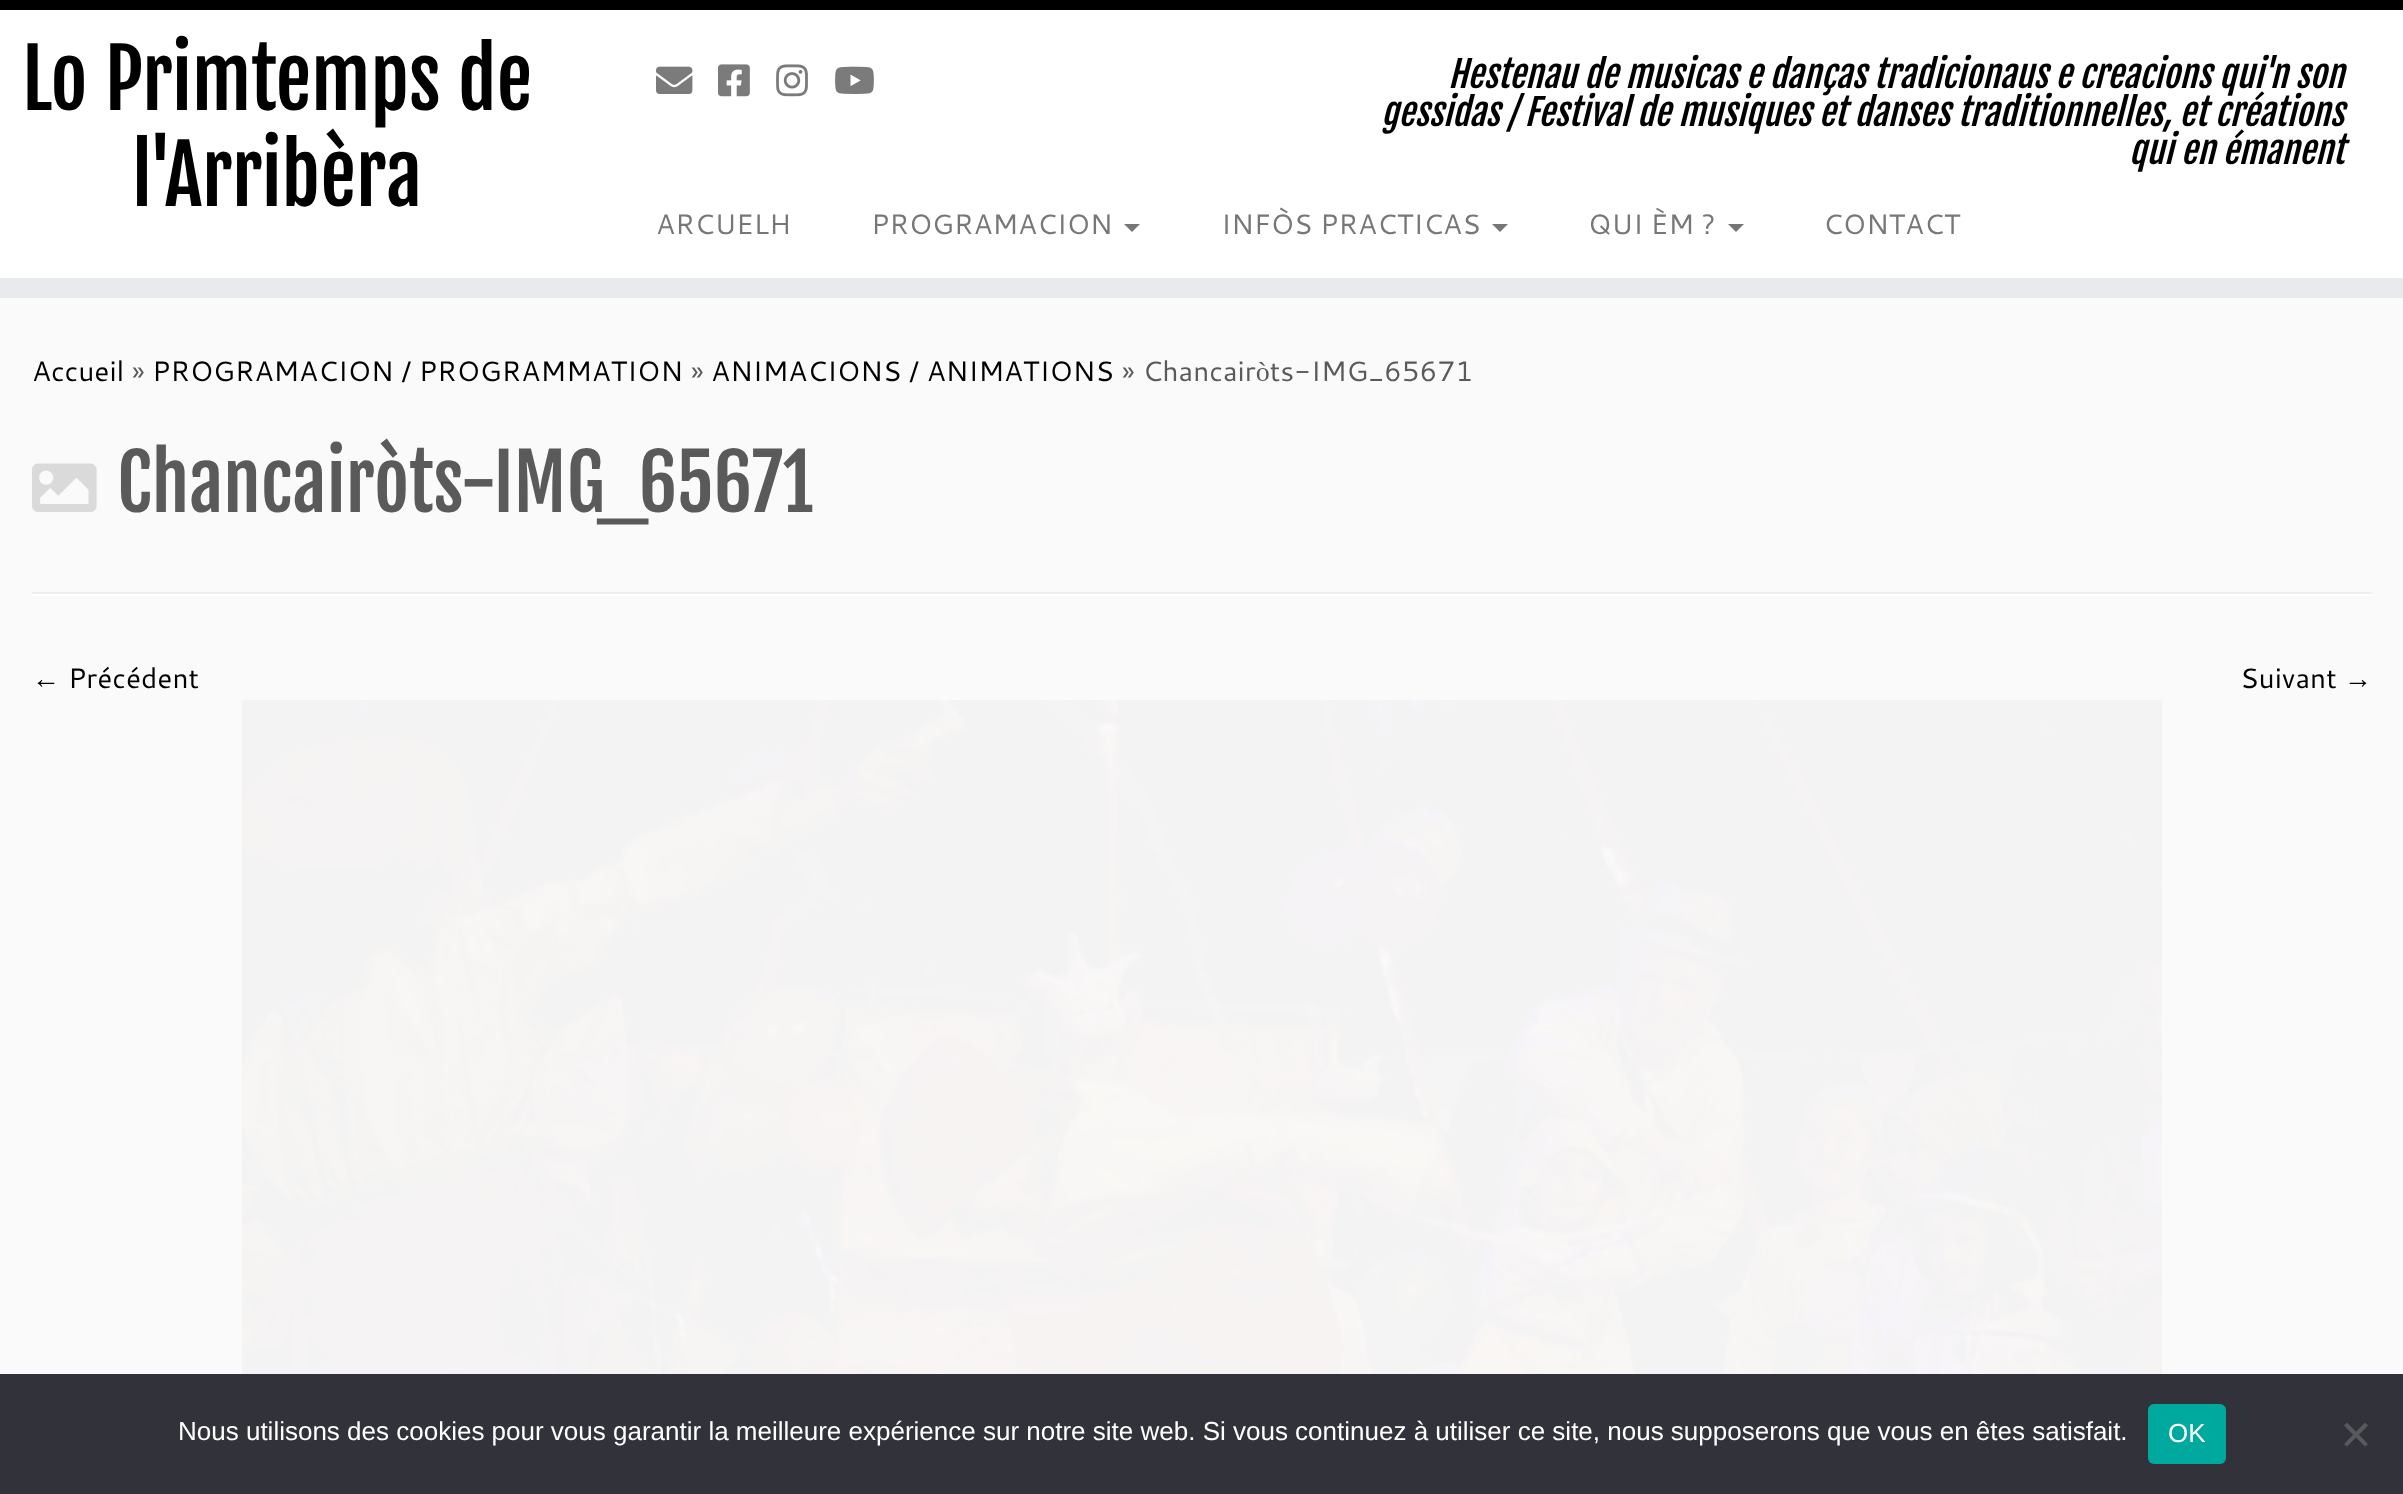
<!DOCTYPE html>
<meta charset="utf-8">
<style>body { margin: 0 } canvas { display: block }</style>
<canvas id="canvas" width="2403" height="1494"></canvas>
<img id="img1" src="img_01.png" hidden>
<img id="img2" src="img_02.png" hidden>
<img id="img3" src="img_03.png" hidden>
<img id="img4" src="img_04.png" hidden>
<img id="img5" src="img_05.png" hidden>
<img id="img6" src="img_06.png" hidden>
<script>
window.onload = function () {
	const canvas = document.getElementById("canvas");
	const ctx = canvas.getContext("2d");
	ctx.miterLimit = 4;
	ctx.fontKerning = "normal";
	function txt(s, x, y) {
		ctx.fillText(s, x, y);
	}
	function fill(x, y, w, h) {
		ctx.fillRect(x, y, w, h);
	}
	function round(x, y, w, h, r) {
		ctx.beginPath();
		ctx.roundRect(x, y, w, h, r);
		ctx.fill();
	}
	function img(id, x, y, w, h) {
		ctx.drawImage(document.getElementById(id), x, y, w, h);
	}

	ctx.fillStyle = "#FAFAFA";
	fill(0, 0, 2403, 1494);
	ctx.fillStyle = "#FFFFFF";
	fill(0, 10, 2403, 268);
	ctx.fillStyle = "#000000";
	fill(0, 0, 2403, 10);
	ctx.fillStyle = "#E9EAEE";
	fill(0, 278, 2403, 20);
	img("img1", 656, 66, 37, 28);
	img("img2", 718, 64, 32, 33);
	img("img3", 776, 64, 32, 33);
	img("img4", 835, 66, 39, 28);
	ctx.fillStyle = "#777777";
	ctx.beginPath();
	ctx.moveTo(1124, 224);
	ctx.lineTo(1140, 224);
	ctx.lineTo(1132, 232);
	ctx.closePath();
	ctx.fill();
	ctx.beginPath();
	ctx.moveTo(1492, 224);
	ctx.lineTo(1508, 224);
	ctx.lineTo(1500, 232);
	ctx.closePath();
	ctx.fill();
	ctx.beginPath();
	ctx.moveTo(1728, 224);
	ctx.lineTo(1744, 224);
	ctx.lineTo(1736, 232);
	ctx.closePath();
	ctx.fill();
	img("img5", 32, 463, 65, 49);
	ctx.fillStyle = "#EEEEEE";
	fill(32, 592, 2340, 2);
	ctx.fillStyle = "#FFFFFF";
	fill(32, 594, 2340, 2);
	img("img6", 242, 700, 1920, 674);
	ctx.fillStyle = "#32323A";
	fill(0, 1374, 2403, 120);
	ctx.fillStyle = "#00A99D";
	round(2148, 1404, 78, 60, 6);
	ctx.fillStyle = "#59595D";
	ctx.beginPath();
	ctx.moveTo(2365, 1422.5);
	ctx.lineTo(2368, 1425.5);
	ctx.lineTo(2347, 1446.5);
	ctx.lineTo(2344, 1444);
	ctx.closePath();
	ctx.fill();
	ctx.beginPath();
	ctx.moveTo(2344, 1425.5);
	ctx.lineTo(2347, 1422.5);
	ctx.lineTo(2368, 1444);
	ctx.lineTo(2365, 1446.5);
	ctx.closePath();
	ctx.fill();
	ctx.font = "80px Fjalla One";
	ctx.fillStyle = "#000000";
	txt("Lo Primtemps de", 22, 110);
	txt("l'Arribèra", 132, 206);
	ctx.font = "italic 36px Fjalla One";
	txt("Hestenau de musicas e danças tradicionaus e creacions qui'n son", 1448, 88);
	txt("gessidas / Festival de musiques et danses traditionnelles, et créations", 1381, 126);
	txt("qui en émanent", 2129, 164);
	ctx.font = "28px Cantarell";
	ctx.fillStyle = "#777777";
	txt("ARCUELH", 656, 234);
	txt("PROGRAMACION", 871, 234);
	txt("INFÒS PRACTICAS", 1221, 234);
	txt("QUI ÈM ?", 1588, 234);
	txt("CONTACT", 1823, 234);
	ctx.fillStyle = "#000000";
	txt("Accueil", 32, 381);
	ctx.fillStyle = "#5A5A5A";
	txt("»", 132, 381);
	ctx.fillStyle = "#000000";
	txt("PROGRAMACION / PROGRAMMATION", 152, 381);
	ctx.fillStyle = "#5A5A5A";
	txt("»", 691, 381);
	ctx.fillStyle = "#000000";
	txt("ANIMACIONS / ANIMATIONS", 711, 381);
	ctx.fillStyle = "#5A5A5A";
	txt("» Chancairòts-IMG_65671", 1122, 381);
	ctx.font = "76px Fjalla One";
	txt("Chancairòts-IMG_65671", 117, 512);
	ctx.font = "28px Liberation Serif";
	ctx.fillStyle = "#000000";
	txt("←", 32, 688);
	ctx.font = "28px Cantarell";
	txt("Précédent", 68, 688);
	txt("Suivant", 2240, 688);
	ctx.font = "28px Liberation Serif";
	txt("→", 2344, 688);
	ctx.font = "26px Liberation Sans";
	ctx.fillStyle = "#FFFFFF";
	txt("Nous utilisons des cookies pour vous garantir la meilleure expérience sur notre site web. Si vous continuez à utiliser ce site, nous supposerons que vous en êtes satisfait.", 178, 1440);
	txt("OK", 2168, 1442);
};
</script>
